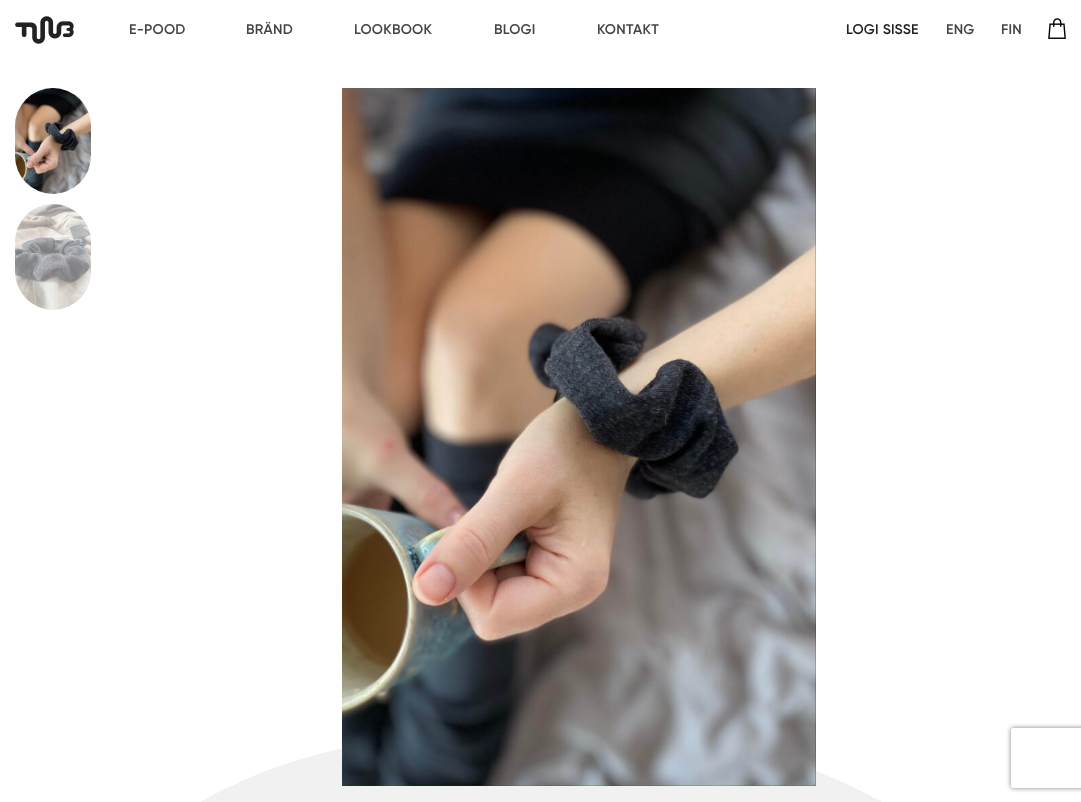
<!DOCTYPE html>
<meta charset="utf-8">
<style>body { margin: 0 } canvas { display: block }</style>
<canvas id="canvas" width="1081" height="802"></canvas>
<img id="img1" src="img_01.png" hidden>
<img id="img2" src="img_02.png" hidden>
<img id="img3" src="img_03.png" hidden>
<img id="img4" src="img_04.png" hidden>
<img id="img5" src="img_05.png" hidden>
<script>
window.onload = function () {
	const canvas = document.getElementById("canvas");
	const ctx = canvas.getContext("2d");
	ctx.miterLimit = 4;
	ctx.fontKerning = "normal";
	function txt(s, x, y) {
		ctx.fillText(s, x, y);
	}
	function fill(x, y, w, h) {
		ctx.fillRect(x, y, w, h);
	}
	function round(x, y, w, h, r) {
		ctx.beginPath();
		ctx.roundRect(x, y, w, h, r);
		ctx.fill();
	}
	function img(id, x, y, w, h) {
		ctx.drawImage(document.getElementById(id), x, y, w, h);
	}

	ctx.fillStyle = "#FFFFFF";
	fill(0, 0, 1081, 802);
	img("img1", 15, 16, 59, 28);
	img("img2", 1048, 18, 18, 21);
	ctx.fillStyle = "#F5F5F5";
	round(15, 88, 76, 106, 38);
	img("img3", 15, 88, 76, 106);
	ctx.fillStyle = "#FAFAFA";
	round(15, 204, 76, 106, 38);
	img("img4", 15, 204, 76, 106);
	ctx.fillStyle = "#F1F1F1";
	ctx.beginPath();
	ctx.moveTo(445, 738);
	ctx.lineTo(637, 738);
	ctx.bezierCurveTo(913, 738, 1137, 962, 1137, 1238);
	ctx.lineTo(-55, 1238);
	ctx.bezierCurveTo(-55, 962, 169, 738, 445, 738);
	ctx.closePath();
	ctx.fill();
	img("img5", 342, 88, 474, 698);
	ctx.save();
	ctx.beginPath();
	ctx.moveTo(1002, 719);
	ctx.lineTo(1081, 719);
	ctx.lineTo(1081, 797);
	ctx.lineTo(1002, 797);
	ctx.closePath();
	ctx.moveTo(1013, 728);
	ctx.lineTo(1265, 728);
	ctx.bezierCurveTo(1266, 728, 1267, 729, 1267, 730);
	ctx.lineTo(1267, 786);
	ctx.bezierCurveTo(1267, 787, 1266, 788, 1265, 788);
	ctx.lineTo(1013, 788);
	ctx.bezierCurveTo(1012, 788, 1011, 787, 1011, 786);
	ctx.lineTo(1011, 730);
	ctx.bezierCurveTo(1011, 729, 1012, 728, 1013, 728);
	ctx.closePath();
	ctx.clip("evenodd");
	ctx.fillStyle = "#808080";
	ctx.filter = "blur(2.5px)";
	ctx.beginPath();
	ctx.roundRect(1011, 728, 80, 60, 2);
	ctx.fill();
	ctx.filter = "none";
	ctx.restore();
	ctx.letterSpacing = "0.25px";
	ctx.font = "600 14px Gilroy";
	ctx.fillStyle = "#444444";
	txt("E-POOD", 129, 34);
	txt("BRÄND", 246, 34);
	txt("LOOKBOOK", 354, 34);
	txt("BLOGI", 494, 34);
	txt("KONTAKT", 597, 34);
	ctx.fillStyle = "#222222";
	txt("LOGI SISSE", 846, 34);
	ctx.fillStyle = "#444444";
	txt("ENG", 946, 34);
	txt("FIN", 1001, 34);
};
</script>
